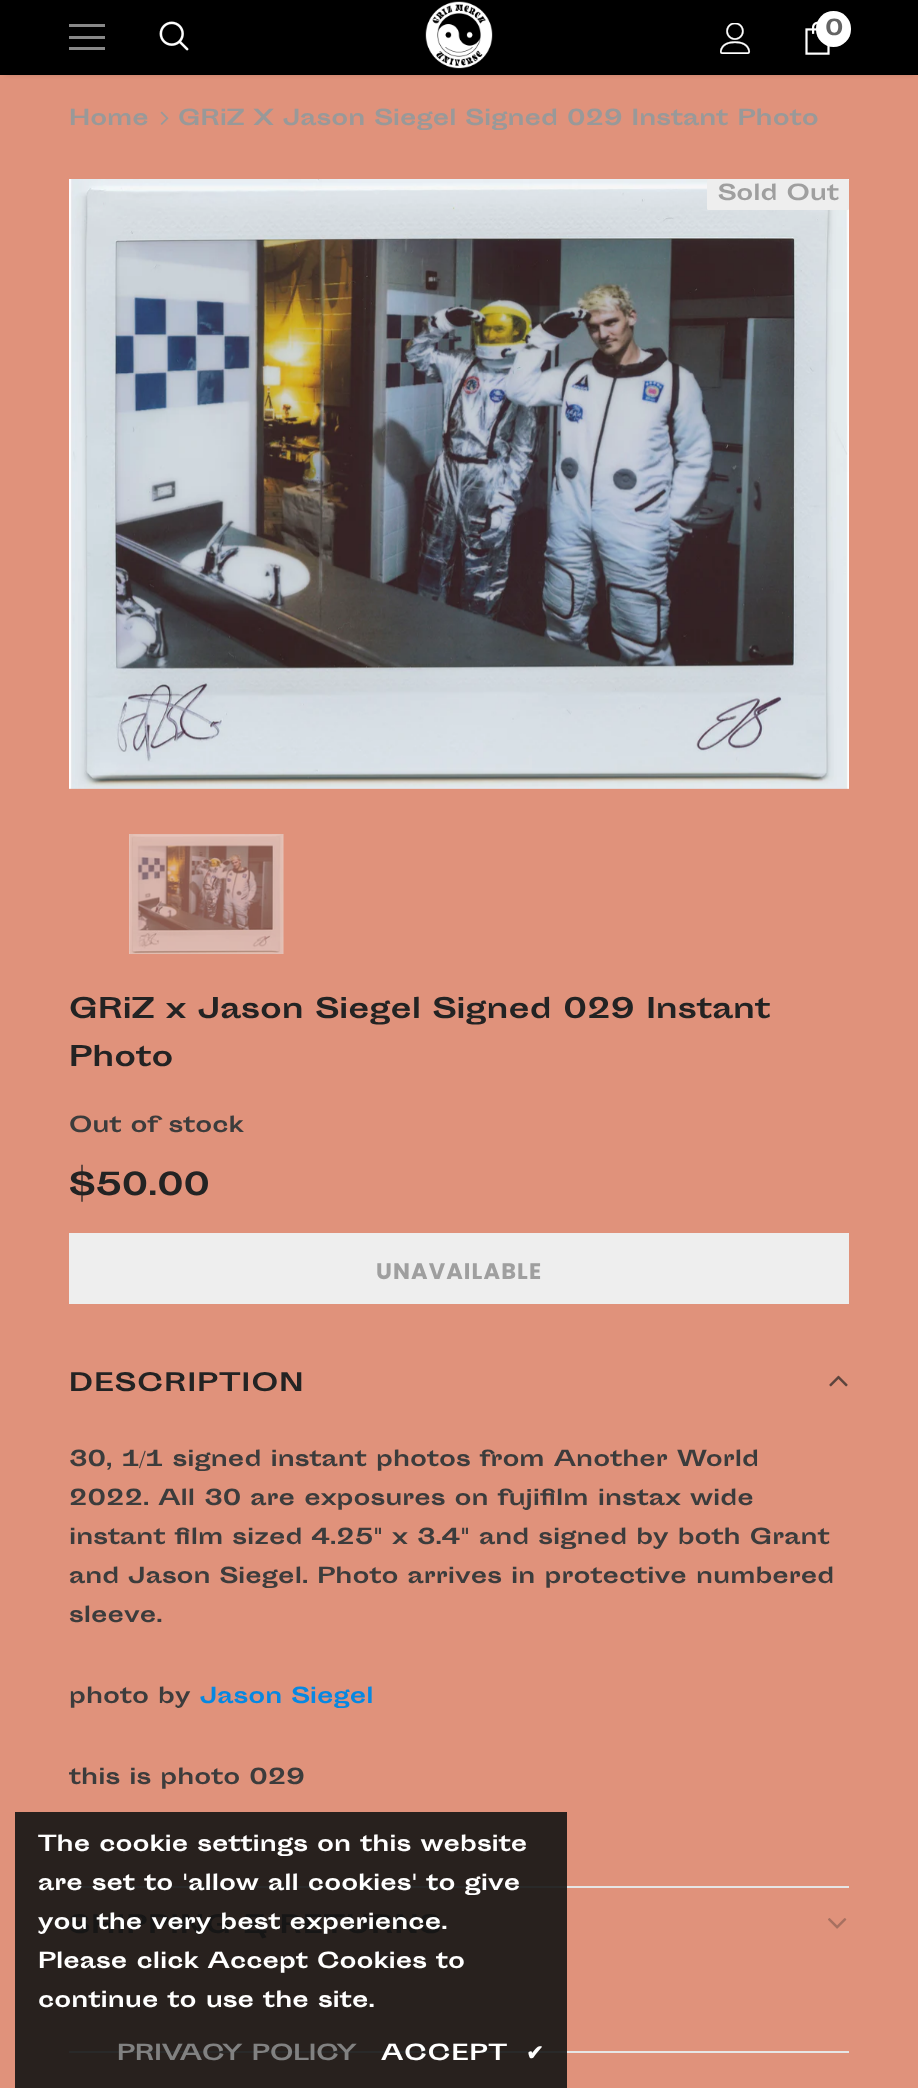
<!DOCTYPE html>
<meta charset="utf-8">
<style>body { margin: 0 } canvas { display: block }</style>
<canvas id="canvas" width="918" height="2088"></canvas>
<img id="img1" src="img_01.png" hidden>
<img id="img2" src="img_02.png" hidden>
<img id="img3" src="img_03.png" hidden>
<img id="img4" src="img_04.png" hidden>
<img id="img5" src="img_05.png" hidden>
<img id="img6" src="img_06.png" hidden>
<img id="img7" src="img_07.png" hidden>
<img id="img8" src="img_08.png" hidden>
<img id="img9" src="img_09.png" hidden>
<script>
window.onload = function () {
	const canvas = document.getElementById("canvas");
	const ctx = canvas.getContext("2d");
	ctx.miterLimit = 4;
	ctx.fontKerning = "normal";
	function txt(s, x, y) {
		ctx.fillText(s, x, y);
	}
	function fill(x, y, w, h) {
		ctx.fillRect(x, y, w, h);
	}
	function round(x, y, w, h, r) {
		ctx.beginPath();
		ctx.roundRect(x, y, w, h, r);
		ctx.fill();
	}
	function img(id, x, y, w, h) {
		ctx.drawImage(document.getElementById(id), x, y, w, h);
	}

	ctx.fillStyle = "#E0927B";
	fill(0, 0, 918, 2088);
	ctx.fillStyle = "rgba(0, 0, 0, 0.12)";
	ctx.filter = "blur(2px)";
	ctx.beginPath();
	ctx.rect(5, 9, 909, 66);
	ctx.fill();
	ctx.filter = "none";
	ctx.fillStyle = "#000000";
	fill(0, 0, 918, 75);
	ctx.fillStyle = "#888888";
	fill(69, 24, 36, 3);
	fill(69, 36, 36, 3);
	fill(69, 47, 36, 3);
	img("img1", 159, 21, 30, 30);
	img("img2", 425, 1, 68, 68);
	img("img3", 720, 23, 31, 31);
	img("img4", 805, 21, 25, 34);
	ctx.fillStyle = "#FFFFFF";
	round(816, 11, 35, 36, 17.5);
	img("img5", 160, 111, 9, 14);
	img("img6", 69, 179, 780, 610);
	ctx.fillStyle = "#EEEEEE";
	round(707, 179, 142, 31, 1.5);
	img("img7", 129, 834, 155, 120);
	fill(69, 1233, 780, 71);
	img("img8", 829, 1375, 19, 12);
	ctx.fillStyle = "#E6E6E6";
	fill(567, 1886, 282, 2);
	ctx.fillStyle = "#28211E";
	fill(15, 1812, 552, 276);
	ctx.fillStyle = "#292929";
	fill(69, 1886, 498, 2);
	img("img9", 828, 1918, 19, 11);
	ctx.fillStyle = "#E6E6E6";
	fill(567, 2051, 282, 2);
	ctx.fillStyle = "#292929";
	fill(69, 2051, 498, 2);
	ctx.font = "bold 21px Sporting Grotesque";
	ctx.fillStyle = "#646464";
	txt("0", 825, 35);
	ctx.fillStyle = "#999999";
	txt("Home", 69, 125);
	txt("GRiZ X Jason Siegel Signed 029 Instant Photo", 178, 125);
	ctx.fillStyle = "#9F9F9F";
	txt("Sold Out", 718, 200);
	ctx.font = "bold 27px Sporting Grotesque";
	ctx.fillStyle = "#232323";
	txt("GRiZ x Jason Siegel Signed 029 Instant", 69, 1018);
	txt("Photo", 69, 1066);
	ctx.font = "bold 21px Sporting Grotesque";
	ctx.fillStyle = "#3C3C3C";
	txt("Out of stock", 69, 1132);
	ctx.font = "bold 30px Sporting Grotesque";
	ctx.fillStyle = "#232323";
	txt("$50.00", 69, 1195);
	ctx.letterSpacing = "1.1px";
	ctx.font = "bold 22.5px Poppins";
	ctx.fillStyle = "#9F9F9F";
	txt("UNAVAILABLE", 376, 1279);
	ctx.letterSpacing = "1.25px";
	ctx.font = "bold 24px Sporting Grotesque";
	ctx.fillStyle = "#232323";
	txt("DESCRIPTION", 69, 1391);
	ctx.letterSpacing = "0px";
	ctx.font = "bold 21px Sporting Grotesque";
	ctx.fillStyle = "#3C3C3C";
	txt("30, 1/1 signed instant photos from Another World", 69, 1466);
	txt("2022. All 30 are exposures on fujifilm instax wide", 69, 1505);
	txt("instant film sized 4.25\" x 3.4\" and signed by both Grant", 69, 1544);
	txt("and Jason Siegel. Photo arrives in protective numbered", 69, 1583);
	txt("sleeve.", 69, 1622);
	txt("photo by", 69, 1703);
	ctx.fillStyle = "#0688E2";
	txt("Jason Siegel", 200, 1703);
	ctx.fillStyle = "#3C3C3C";
	txt("this is photo 029", 69, 1784);
	ctx.letterSpacing = "1.25px";
	ctx.font = "bold 24px Sporting Grotesque";
	ctx.fillStyle = "#161616";
	txt("SHIPPING & RETURNS", 69, 1933);
	ctx.letterSpacing = "0px";
	ctx.font = "bold 21px Sporting Grotesque";
	ctx.fillStyle = "#FFFFFF";
	txt("The cookie settings on this website", 38, 1851);
	txt("are set to 'allow all cookies' to give", 38, 1890);
	txt("you the very best experience.", 38, 1929);
	txt("Please click Accept Cookies to", 38, 1968);
	txt("continue to use the site.", 38, 2007);
	ctx.fillStyle = "#818181";
	txt("PRIVACY POLICY", 117, 2060);
	ctx.letterSpacing = "1px";
	ctx.fillStyle = "#FFFFFF";
	txt("ACCEPT", 381, 2060);
	ctx.font = "bold 21px DejaVu Sans";
	txt("✔", 526, 2060);
};
</script>
